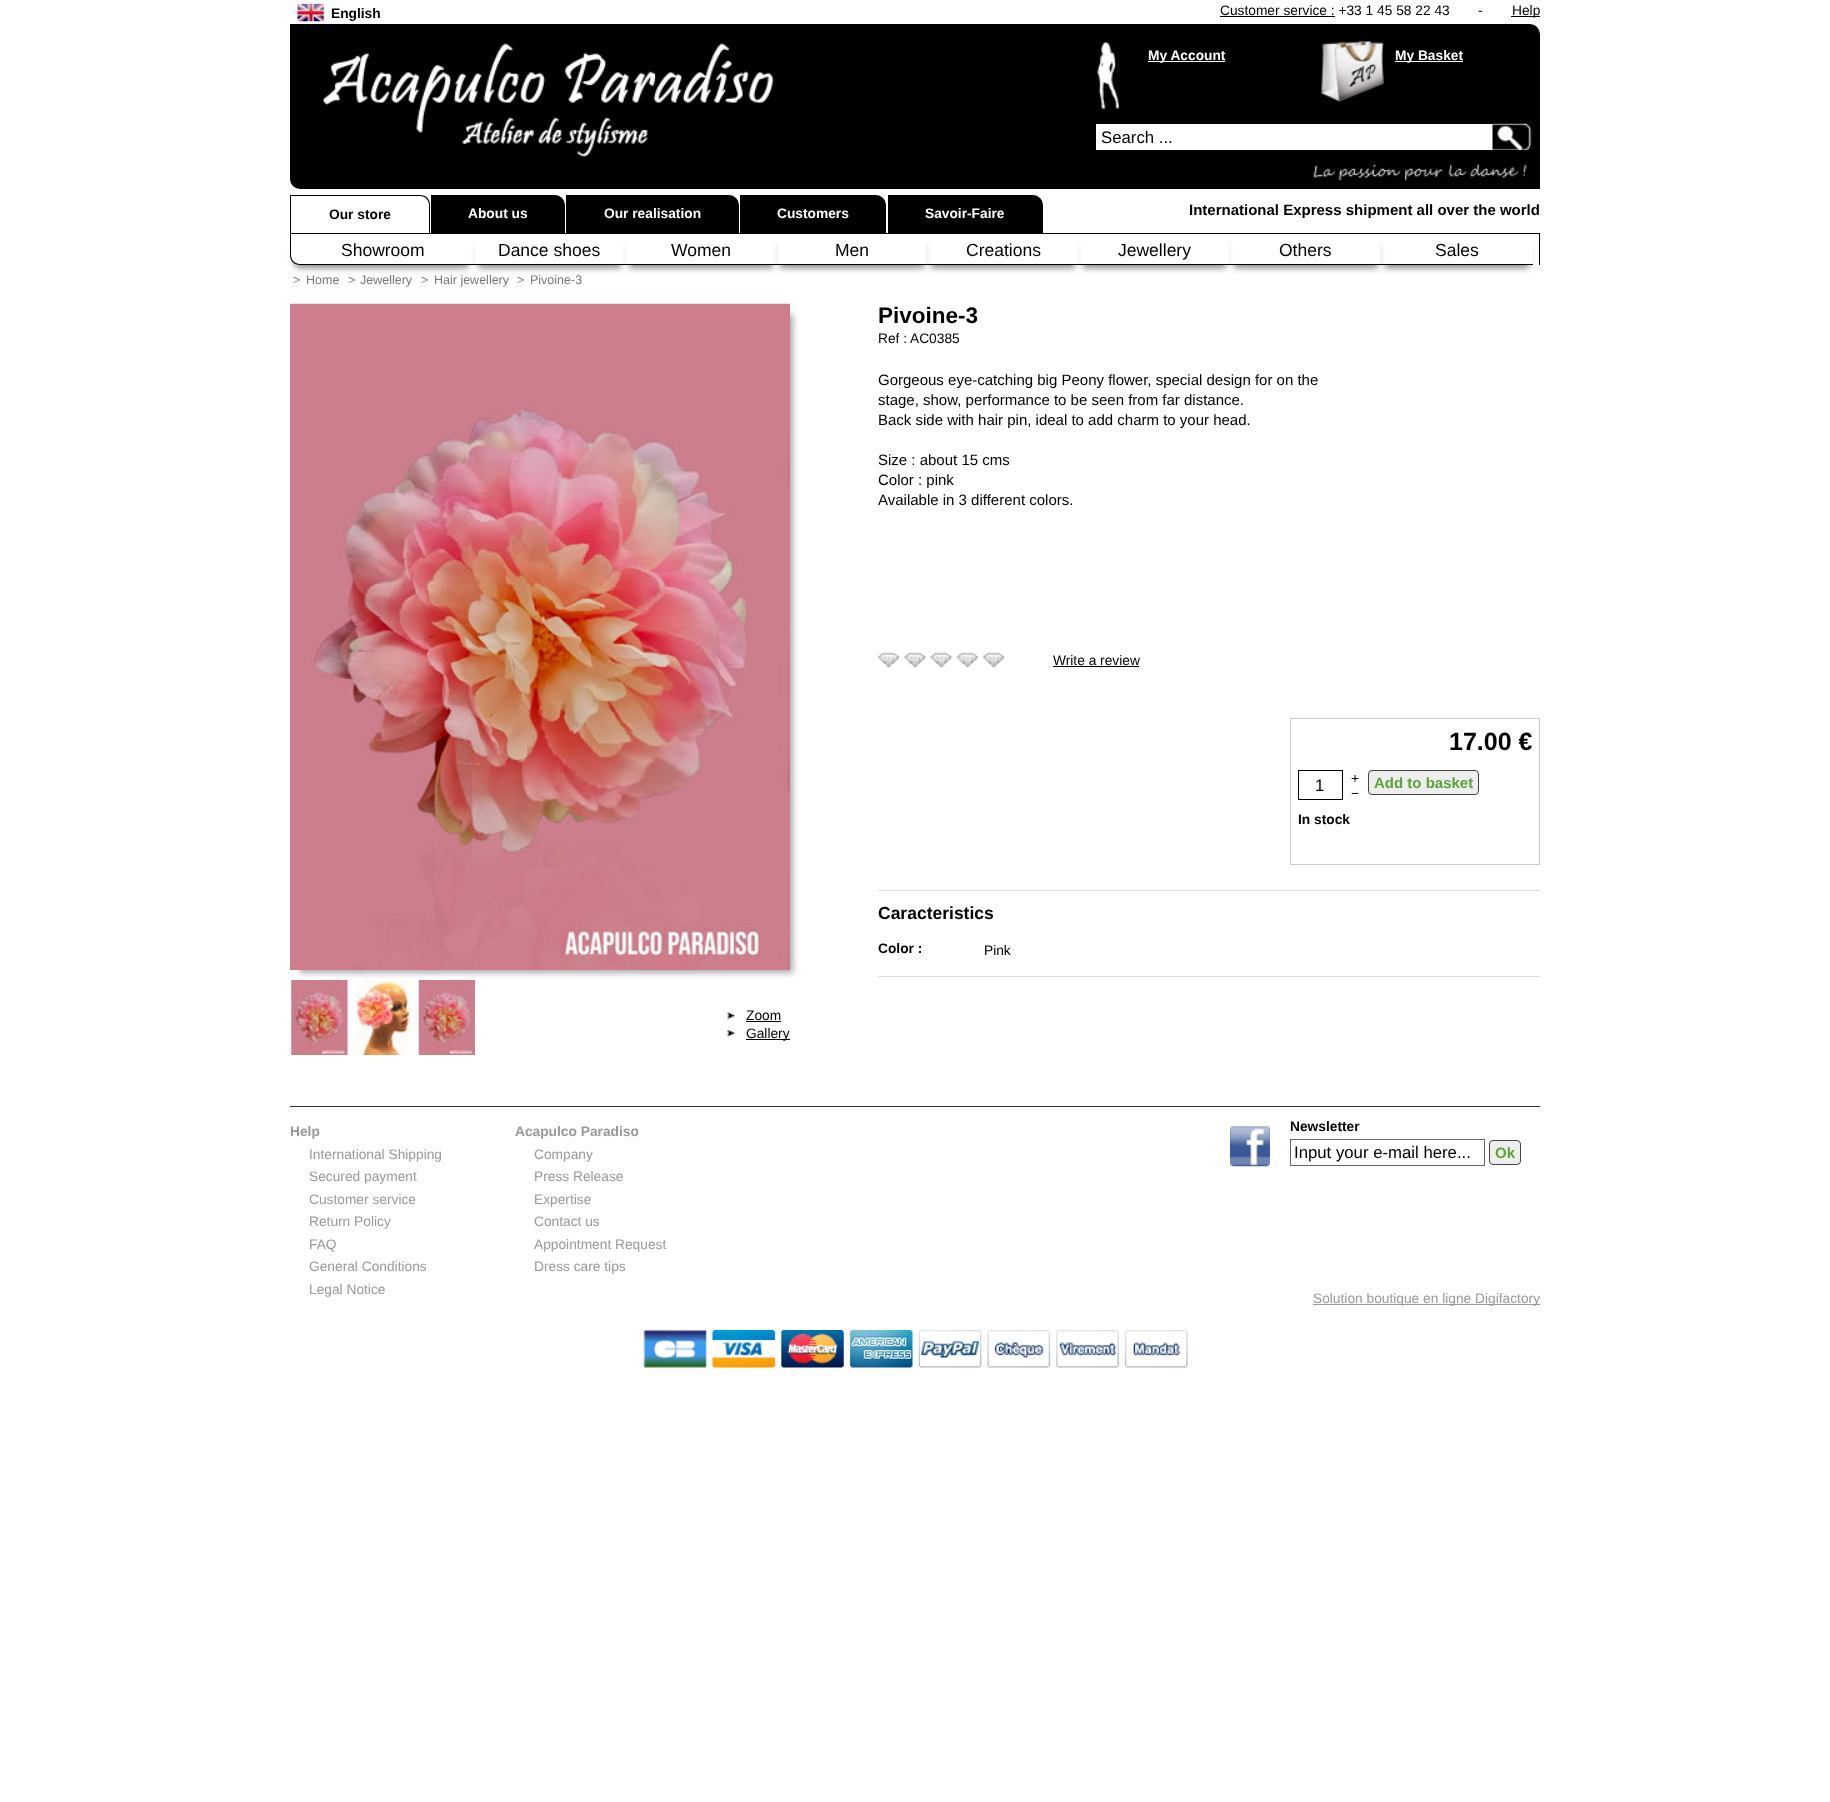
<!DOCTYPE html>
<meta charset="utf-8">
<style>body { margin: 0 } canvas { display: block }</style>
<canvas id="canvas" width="1830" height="1802"></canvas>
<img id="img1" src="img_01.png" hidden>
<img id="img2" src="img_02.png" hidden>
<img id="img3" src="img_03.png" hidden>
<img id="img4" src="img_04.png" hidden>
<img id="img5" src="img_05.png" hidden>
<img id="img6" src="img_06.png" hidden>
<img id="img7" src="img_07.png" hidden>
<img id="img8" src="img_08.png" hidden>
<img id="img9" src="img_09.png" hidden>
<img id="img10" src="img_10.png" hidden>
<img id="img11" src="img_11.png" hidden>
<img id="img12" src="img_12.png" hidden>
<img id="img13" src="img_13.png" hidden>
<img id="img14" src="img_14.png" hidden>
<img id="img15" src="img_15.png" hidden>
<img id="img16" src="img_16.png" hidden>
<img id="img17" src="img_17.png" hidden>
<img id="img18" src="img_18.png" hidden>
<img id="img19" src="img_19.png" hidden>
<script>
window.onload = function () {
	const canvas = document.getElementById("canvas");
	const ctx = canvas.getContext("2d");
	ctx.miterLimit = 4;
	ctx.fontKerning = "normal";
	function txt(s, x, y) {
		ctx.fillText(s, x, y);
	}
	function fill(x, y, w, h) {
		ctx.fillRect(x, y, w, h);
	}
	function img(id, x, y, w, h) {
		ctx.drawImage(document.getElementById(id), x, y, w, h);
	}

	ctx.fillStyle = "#FFFFFF";
	fill(0, 0, 1830, 1802);
	img("img1", 297, 3, 27, 19);
	ctx.fillStyle = "#000000";
	fill(1220, 16, 115, 1);
	fill(1511, 16, 29, 1);
	ctx.beginPath();
	ctx.roundRect(290, 24, 1250, 165, [0, 10, 0, 10]);
	ctx.fill();
	img("img2", 1313, 163, 214, 18);
	img("img3", 322, 43, 452, 114);
	img("img4", 1097, 42, 22, 67);
	ctx.fillStyle = "#FFFFFF";
	fill(1148, 61, 77, 1);
	img("img5", 1321, 41, 63, 61);
	fill(1395, 61, 68, 1);
	fill(1096, 124, 397, 26);
	img("img6", 1492, 123, 40, 27);
	ctx.fillStyle = "#000000";
	ctx.beginPath();
	ctx.roundRect(431, 195, 134, 38, [0, 10, 0, 0]);
	ctx.fill();
	ctx.beginPath();
	ctx.roundRect(566, 195, 173, 38, [0, 10, 0, 0]);
	ctx.fill();
	ctx.beginPath();
	ctx.roundRect(740, 195, 146, 38, [0, 10, 0, 0]);
	ctx.fill();
	ctx.beginPath();
	ctx.roundRect(888, 195, 155, 38, [0, 10, 0, 0]);
	ctx.fill();
	ctx.beginPath();
	ctx.moveTo(290, 195);
	ctx.lineTo(420, 195);
	ctx.bezierCurveTo(426, 195, 430, 199, 430, 205);
	ctx.lineTo(430, 234);
	ctx.lineTo(290, 234);
	ctx.closePath();
	ctx.moveTo(291, 196);
	ctx.lineTo(420, 196);
	ctx.bezierCurveTo(425, 196, 429, 200, 429, 205);
	ctx.lineTo(429, 234);
	ctx.lineTo(291, 234);
	ctx.closePath();
	ctx.fill("evenodd");
	fill(290, 233, 1250, 1);
	fill(1539, 233, 1, 32);
	ctx.save();
	ctx.beginPath();
	ctx.moveTo(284, 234);
	ctx.lineTo(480, 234);
	ctx.lineTo(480, 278);
	ctx.lineTo(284, 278);
	ctx.closePath();
	ctx.moveTo(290, 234);
	ctx.lineTo(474, 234);
	ctx.lineTo(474, 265);
	ctx.lineTo(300, 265);
	ctx.bezierCurveTo(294.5, 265, 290, 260.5, 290, 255);
	ctx.closePath();
	ctx.clip("evenodd");
	ctx.fillStyle = "#888888";
	ctx.filter = "blur(3px)";
	ctx.beginPath();
	ctx.roundRect(294, 244, 176, 24, 6);
	ctx.fill();
	ctx.filter = "none";
	ctx.restore();
	ctx.beginPath();
	ctx.moveTo(290, 234);
	ctx.lineTo(474, 234);
	ctx.lineTo(474, 265);
	ctx.lineTo(300, 265);
	ctx.bezierCurveTo(294, 265, 290, 261, 290, 255);
	ctx.closePath();
	ctx.moveTo(291, 234);
	ctx.lineTo(474, 234);
	ctx.lineTo(474, 264);
	ctx.lineTo(300, 264);
	ctx.bezierCurveTo(295, 264, 291, 260, 291, 255);
	ctx.closePath();
	ctx.fill("evenodd");
	ctx.save();
	ctx.beginPath();
	ctx.moveTo(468, 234);
	ctx.lineTo(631, 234);
	ctx.lineTo(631, 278);
	ctx.lineTo(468, 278);
	ctx.closePath();
	ctx.moveTo(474, 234);
	ctx.lineTo(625, 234);
	ctx.lineTo(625, 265);
	ctx.lineTo(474, 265);
	ctx.closePath();
	ctx.clip("evenodd");
	ctx.fillStyle = "#888888";
	ctx.filter = "blur(3px)";
	ctx.beginPath();
	ctx.rect(478, 244, 143, 24);
	ctx.fill();
	ctx.filter = "none";
	ctx.restore();
	fill(474, 264, 151, 1);
	ctx.save();
	ctx.beginPath();
	ctx.moveTo(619, 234);
	ctx.lineTo(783, 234);
	ctx.lineTo(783, 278);
	ctx.lineTo(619, 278);
	ctx.closePath();
	ctx.moveTo(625, 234);
	ctx.lineTo(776, 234);
	ctx.lineTo(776, 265);
	ctx.lineTo(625, 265);
	ctx.closePath();
	ctx.clip("evenodd");
	ctx.fillStyle = "#888888";
	ctx.filter = "blur(3px)";
	ctx.beginPath();
	ctx.rect(629, 244, 144, 24);
	ctx.fill();
	ctx.filter = "none";
	ctx.restore();
	fill(625, 264, 151, 1);
	ctx.save();
	ctx.beginPath();
	ctx.moveTo(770, 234);
	ctx.lineTo(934, 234);
	ctx.lineTo(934, 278);
	ctx.lineTo(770, 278);
	ctx.closePath();
	ctx.moveTo(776, 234);
	ctx.lineTo(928, 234);
	ctx.lineTo(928, 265);
	ctx.lineTo(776, 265);
	ctx.closePath();
	ctx.clip("evenodd");
	ctx.fillStyle = "#888888";
	ctx.filter = "blur(3px)";
	ctx.beginPath();
	ctx.rect(780, 244, 144, 24);
	ctx.fill();
	ctx.filter = "none";
	ctx.restore();
	fill(776, 264, 152, 1);
	ctx.save();
	ctx.beginPath();
	ctx.moveTo(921, 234);
	ctx.lineTo(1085, 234);
	ctx.lineTo(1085, 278);
	ctx.lineTo(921, 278);
	ctx.closePath();
	ctx.moveTo(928, 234);
	ctx.lineTo(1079, 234);
	ctx.lineTo(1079, 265);
	ctx.lineTo(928, 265);
	ctx.closePath();
	ctx.clip("evenodd");
	ctx.fillStyle = "#888888";
	ctx.filter = "blur(3px)";
	ctx.beginPath();
	ctx.rect(931, 244, 144, 24);
	ctx.fill();
	ctx.filter = "none";
	ctx.restore();
	fill(928, 264, 151, 1);
	ctx.save();
	ctx.beginPath();
	ctx.moveTo(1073, 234);
	ctx.lineTo(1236, 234);
	ctx.lineTo(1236, 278);
	ctx.lineTo(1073, 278);
	ctx.closePath();
	ctx.moveTo(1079, 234);
	ctx.lineTo(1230, 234);
	ctx.lineTo(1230, 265);
	ctx.lineTo(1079, 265);
	ctx.closePath();
	ctx.clip("evenodd");
	ctx.fillStyle = "#888888";
	ctx.filter = "blur(3px)";
	ctx.beginPath();
	ctx.rect(1083, 244, 143, 24);
	ctx.fill();
	ctx.filter = "none";
	ctx.restore();
	fill(1079, 264, 151, 1);
	ctx.save();
	ctx.beginPath();
	ctx.moveTo(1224, 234);
	ctx.lineTo(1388, 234);
	ctx.lineTo(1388, 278);
	ctx.lineTo(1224, 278);
	ctx.closePath();
	ctx.moveTo(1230, 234);
	ctx.lineTo(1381, 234);
	ctx.lineTo(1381, 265);
	ctx.lineTo(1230, 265);
	ctx.closePath();
	ctx.clip("evenodd");
	ctx.fillStyle = "#888888";
	ctx.filter = "blur(3px)";
	ctx.beginPath();
	ctx.rect(1234, 244, 144, 24);
	ctx.fill();
	ctx.filter = "none";
	ctx.restore();
	fill(1230, 264, 151, 1);
	ctx.save();
	ctx.beginPath();
	ctx.moveTo(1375, 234);
	ctx.lineTo(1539, 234);
	ctx.lineTo(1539, 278);
	ctx.lineTo(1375, 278);
	ctx.closePath();
	ctx.moveTo(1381, 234);
	ctx.lineTo(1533, 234);
	ctx.lineTo(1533, 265);
	ctx.lineTo(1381, 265);
	ctx.closePath();
	ctx.clip("evenodd");
	ctx.fillStyle = "#888888";
	ctx.filter = "blur(3px)";
	ctx.beginPath();
	ctx.rect(1385, 244, 144, 24);
	ctx.fill();
	ctx.filter = "none";
	ctx.restore();
	fill(1381, 264, 152, 1);
	img("img7", 877, 652, 23, 16);
	img("img8", 903, 652, 24, 16);
	img("img9", 930, 652, 23, 16);
	img("img10", 956, 652, 23, 16);
	img("img11", 982, 652, 23, 16);
	fill(1053, 666, 86, 1);
	ctx.strokeStyle = "#CCCCCC";
	ctx.strokeRect(1290.5, 718.5, 249, 146);
	ctx.strokeStyle = "#000000";
	ctx.strokeRect(1298.5, 770.5, 44, 29);
	ctx.fillStyle = "#EEEEEE";
	ctx.beginPath();
	ctx.roundRect(1368.5, 770.5, 110, 24, 3.5);
	ctx.fill();
	ctx.strokeStyle = "#444444";
	ctx.stroke();
	ctx.fillStyle = "#DDDDDD";
	fill(878, 890, 662, 1);
	fill(878, 976, 662, 1);
	ctx.fillStyle = "#AAAAAA";
	ctx.filter = "blur(3px)";
	ctx.beginPath();
	ctx.rect(300, 314, 493, 659);
	ctx.fill();
	ctx.filter = "none";
	img("img12", 290, 303, 500, 667);
	img("img13", 291, 980, 57, 75);
	img("img14", 355, 980, 57, 75);
	img("img15", 418, 980, 57, 75);
	img("img16", 727, 1012, 8, 7);
	ctx.fillStyle = "#000000";
	fill(746, 1021, 35, 1);
	img("img17", 727, 1030, 8, 7);
	fill(746, 1039, 44, 1);
	ctx.fillStyle = "#333333";
	fill(290, 1106, 1250, 1);
	img("img18", 1230, 1126, 40, 41);
	ctx.strokeStyle = "#666666";
	ctx.strokeRect(1290.5, 1139.5, 194, 26);
	ctx.fillStyle = "#EEEEEE";
	ctx.beginPath();
	ctx.roundRect(1489.5, 1140.5, 31, 24, 3.5);
	ctx.fill();
	ctx.strokeStyle = "#444444";
	ctx.stroke();
	ctx.fillStyle = "#999999";
	fill(1313, 1304, 227, 1);
	img("img19", 643, 1330, 545, 38);
	ctx.font = "bold 13.75px Liberation Sans";
	ctx.fillStyle = "#000000";
	txt("English", 331, 18);
	ctx.font = "13.75px Liberation Sans";
	txt("Customer service : +33 1 45 58 22 43", 1220, 15);
	txt("-", 1478, 15);
	txt("Help", 1512, 15);
	ctx.font = "bold 13.75px Liberation Sans";
	ctx.fillStyle = "#FFFFFF";
	txt("My Account", 1148, 60);
	txt("My Basket", 1395, 60);
	ctx.font = "16.75px Liberation Sans";
	ctx.fillStyle = "#000000";
	txt("Search ...", 1101, 143);
	ctx.font = "bold 15px Liberation Sans";
	txt("International Express shipment all over the world", 1189, 215);
	ctx.font = "bold 13.75px Liberation Sans";
	ctx.fillStyle = "#FFFFFF";
	txt("About us", 468, 218);
	txt("Our realisation", 604, 218);
	txt("Customers", 777, 218);
	txt("Savoir-Faire", 925, 218);
	ctx.fillStyle = "#000000";
	txt("Our store", 329, 219);
	ctx.font = "17.5px Liberation Sans";
	txt("Showroom", 341, 256);
	txt("Dance shoes", 498, 256);
	txt("Women", 671, 256);
	txt("Men", 835, 256);
	txt("Creations", 966, 256);
	txt("Jewellery", 1118, 256);
	txt("Others", 1279, 256);
	txt("Sales", 1435, 256);
	ctx.font = "12.5px Liberation Sans";
	ctx.fillStyle = "#777777";
	txt(">", 293, 284);
	txt("Home", 306, 284);
	txt(">", 348, 284);
	txt("Jewellery", 360, 284);
	txt(">", 421, 284);
	txt("Hair jewellery", 434, 284);
	txt(">", 517, 284);
	txt("Pivoine-3", 530, 284);
	ctx.font = "bold 22.5px Liberation Sans";
	ctx.fillStyle = "#000000";
	txt("Pivoine-3", 878, 323);
	ctx.font = "13.75px Liberation Sans";
	txt("Ref :", 878, 343);
	txt("AC0385", 910, 343);
	ctx.font = "15px Liberation Sans";
	txt("Gorgeous eye-catching big Peony flower, special design for on the", 878, 385);
	txt("stage, show, performance to be seen from far distance.", 878, 405);
	txt("Back side with hair pin, ideal to add charm to your head.", 878, 425);
	txt("Size : about 15 cms", 878, 465);
	txt("Color : pink", 878, 485);
	txt("Available in 3 different colors.", 878, 505);
	ctx.font = "13.75px Liberation Sans";
	txt("Write a review", 1053, 665);
	ctx.font = "bold 25px Liberation Sans";
	txt("17.00 €", 1449, 750);
	ctx.font = "16.75px Liberation Sans";
	txt("1", 1315, 791);
	ctx.font = "13.75px Liberation Sans";
	txt("+", 1351, 783);
	txt("−", 1351, 798);
	ctx.font = "bold 15px Liberation Sans";
	ctx.fillStyle = "#5CA339";
	txt("Add to basket", 1374, 788);
	ctx.font = "bold 13.75px Liberation Sans";
	ctx.fillStyle = "#000000";
	txt("In stock", 1298, 824);
	ctx.font = "bold 17.5px Liberation Sans";
	txt("Caracteristics", 878, 919);
	ctx.font = "bold 13.75px Liberation Sans";
	txt("Color :", 878, 953);
	ctx.font = "13.75px Liberation Sans";
	txt("Pink", 984, 955);
	txt("Zoom", 746, 1020);
	txt("Gallery", 746, 1038);
	ctx.font = "bold 13.75px Liberation Sans";
	ctx.fillStyle = "#999999";
	txt("Help", 290, 1136);
	ctx.font = "13.75px Liberation Sans";
	txt("International Shipping", 309, 1159);
	txt("Secured payment", 309, 1181);
	txt("Customer service", 309, 1204);
	txt("Return Policy", 309, 1226);
	txt("FAQ", 309, 1249);
	txt("General Conditions", 309, 1271);
	txt("Legal Notice", 309, 1294);
	ctx.font = "bold 13.75px Liberation Sans";
	txt("Acapulco Paradiso", 515, 1136);
	ctx.font = "13.75px Liberation Sans";
	txt("Company", 534, 1159);
	txt("Press Release", 534, 1181);
	txt("Expertise", 534, 1204);
	txt("Contact us", 534, 1226);
	txt("Appointment Request", 534, 1249);
	txt("Dress care tips", 534, 1271);
	ctx.font = "bold 13.75px Liberation Sans";
	ctx.fillStyle = "#000000";
	txt("Newsletter", 1290, 1131);
	ctx.font = "16.75px Liberation Sans";
	txt("Input your e-mail here...", 1294, 1158);
	ctx.font = "bold 15px Liberation Sans";
	ctx.fillStyle = "#5CA339";
	txt("Ok", 1495, 1158);
	ctx.font = "13.75px Liberation Sans";
	ctx.fillStyle = "#999999";
	txt("Solution boutique en ligne Digifactory", 1313, 1303);
};
</script>
